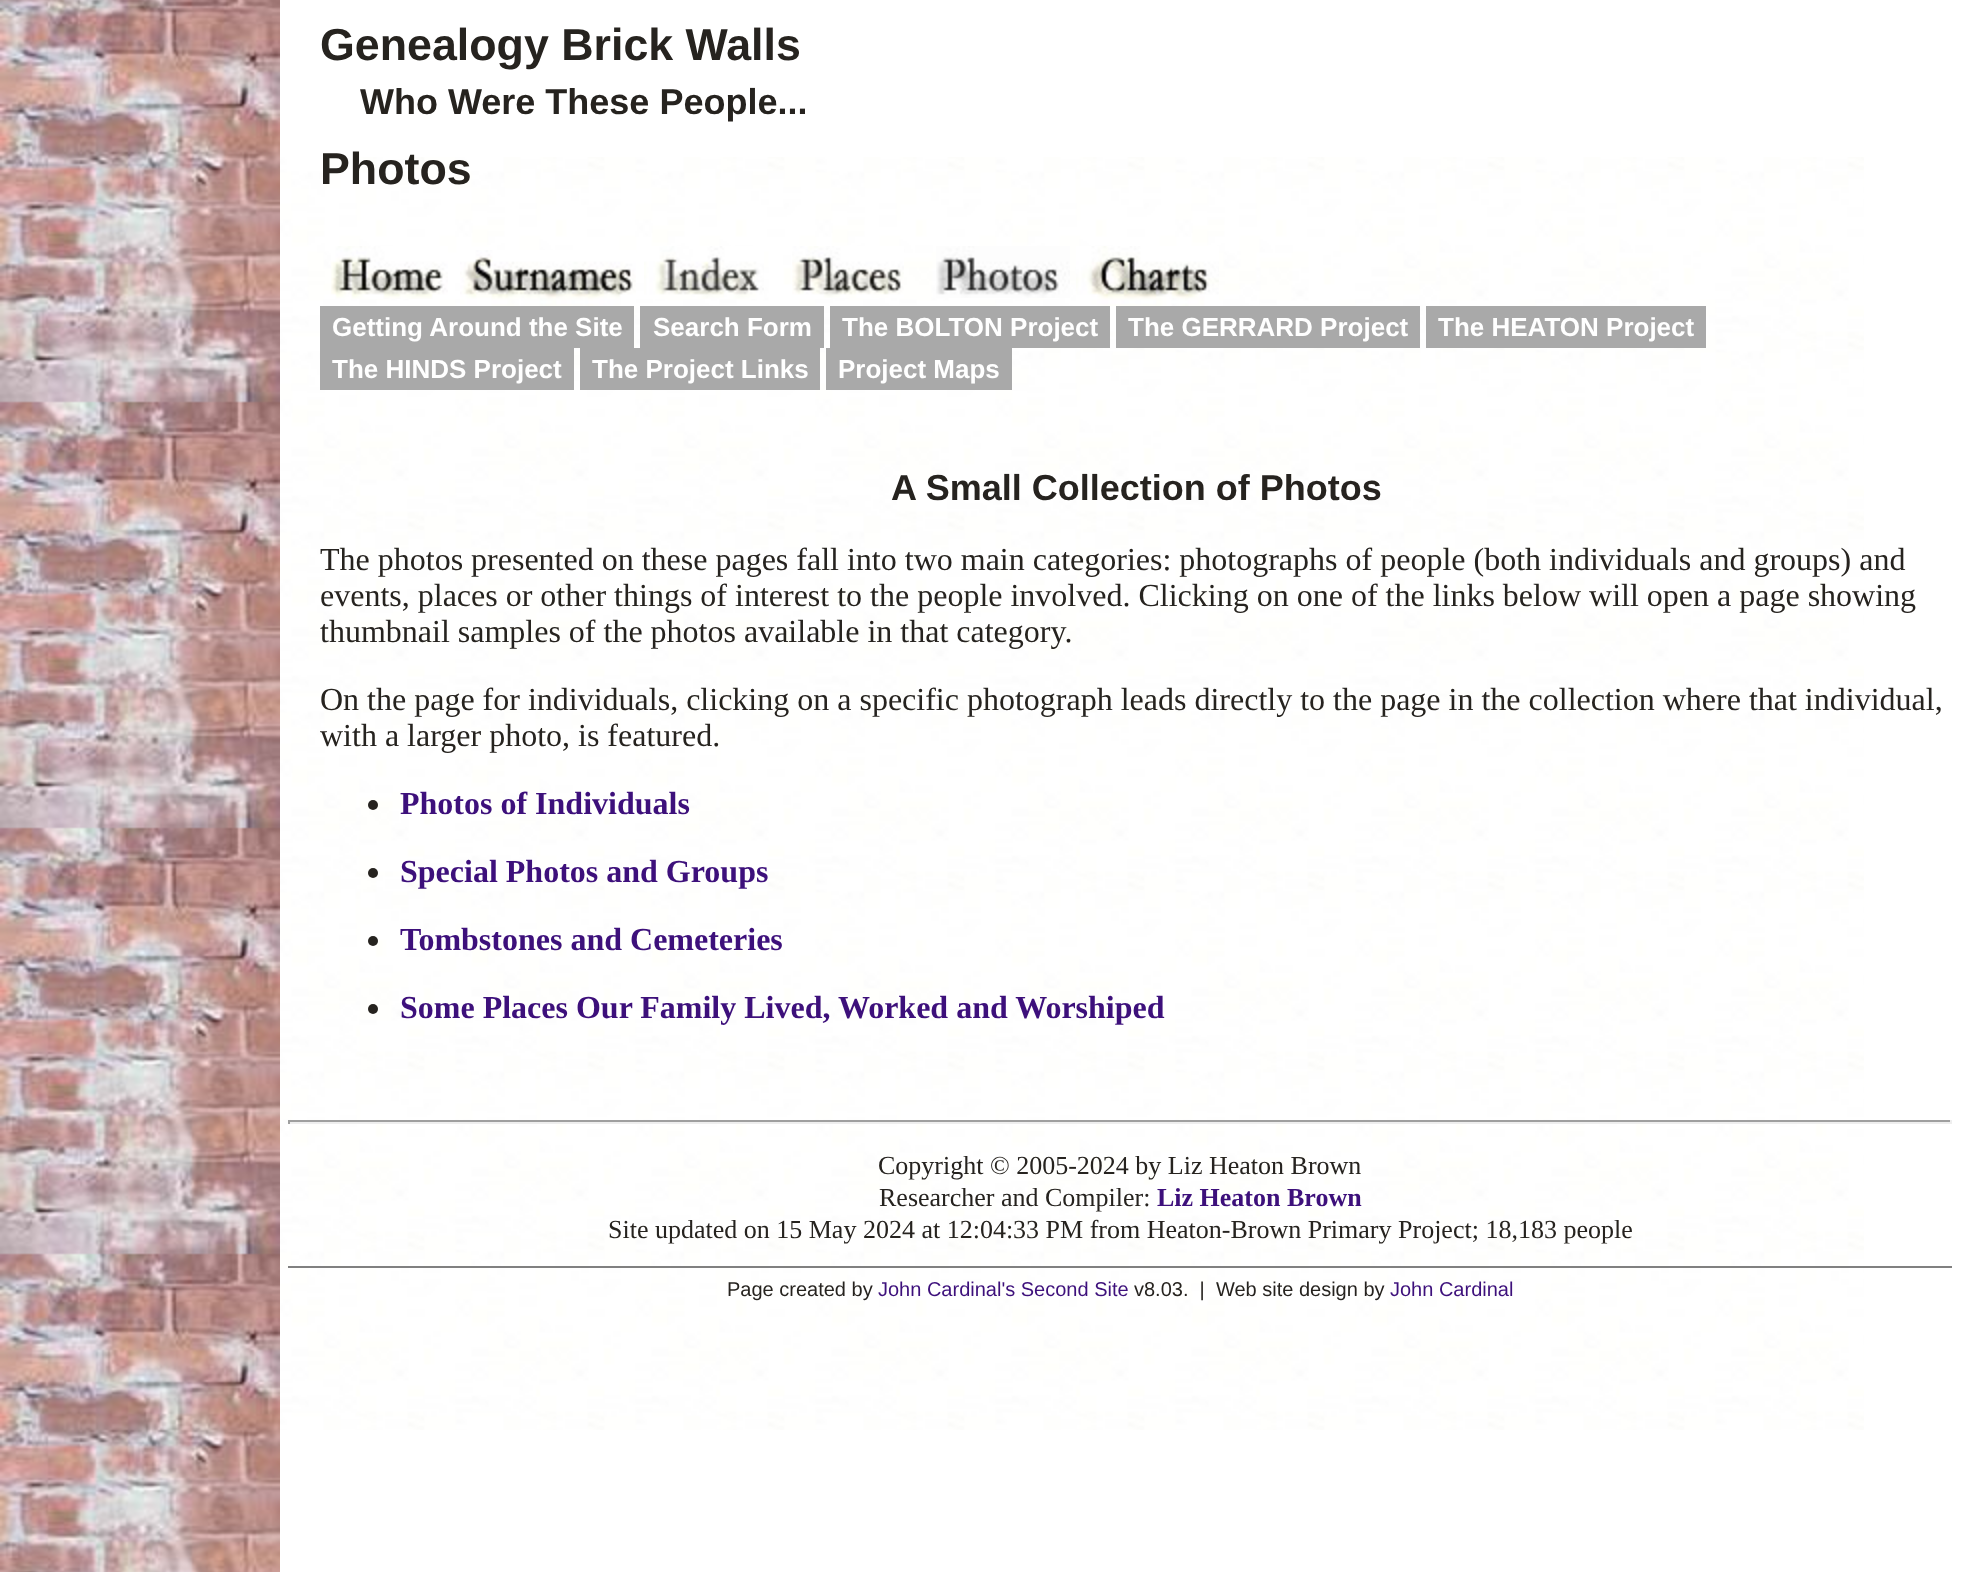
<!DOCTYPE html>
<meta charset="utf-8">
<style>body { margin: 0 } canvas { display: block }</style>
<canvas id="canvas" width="1971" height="1572"></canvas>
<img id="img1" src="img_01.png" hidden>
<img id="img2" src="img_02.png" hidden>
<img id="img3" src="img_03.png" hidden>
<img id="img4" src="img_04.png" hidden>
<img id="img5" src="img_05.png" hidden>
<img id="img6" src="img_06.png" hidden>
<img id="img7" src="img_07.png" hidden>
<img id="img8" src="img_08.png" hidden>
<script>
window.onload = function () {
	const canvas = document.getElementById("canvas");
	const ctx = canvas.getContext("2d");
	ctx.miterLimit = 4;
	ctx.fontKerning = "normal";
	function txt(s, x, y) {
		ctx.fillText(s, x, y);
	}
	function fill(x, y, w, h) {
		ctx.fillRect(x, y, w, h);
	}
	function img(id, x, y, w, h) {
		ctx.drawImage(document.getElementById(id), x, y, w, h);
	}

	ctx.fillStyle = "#FFFFFF";
	fill(0, 0, 1971, 1572);
	img("img1", 280, 157, 1584, 1273);
	img("img2", 0, 0, 280, 1572);
	img("img3", 331, 246, 117, 53);
	img("img4", 460, 250, 176, 56);
	img("img5", 644, 246, 120, 53);
	img("img6", 792, 246, 112, 52);
	img("img7", 936, 246, 134, 52);
	img("img8", 1076, 246, 143, 60);
	ctx.fillStyle = "#A9A9A9";
	fill(320, 306, 314, 42);
	fill(640, 306, 184, 42);
	fill(830, 306, 280, 42);
	fill(1116, 306, 304, 42);
	fill(1426, 306, 280, 42);
	fill(320, 348, 254, 42);
	fill(580, 348, 240, 42);
	fill(826, 348, 186, 42);
	ctx.fillStyle = "#26231F";
	ctx.beginPath();
	ctx.arc(373, 805, 5, 0, Math.PI * 2);
	ctx.fill();
	ctx.beginPath();
	ctx.arc(373, 873, 5, 0, Math.PI * 2);
	ctx.fill();
	ctx.beginPath();
	ctx.arc(373, 941, 5, 0, Math.PI * 2);
	ctx.fill();
	ctx.beginPath();
	ctx.arc(373, 1009, 5, 0, Math.PI * 2);
	ctx.fill();
	ctx.fillStyle = "#9F9F9F";
	fill(288, 1120, 1664, 2);
	ctx.fillStyle = "#EEEEEE";
	fill(1950, 1120, 2, 4);
	fill(288, 1122, 1664, 2);
	ctx.fillStyle = "#9F9F9F";
	fill(288, 1120, 2, 4);
	ctx.fillStyle = "#808080";
	fill(288, 1266, 1664, 2);
	ctx.font = "bold 44.75px Liberation Sans";
	ctx.fillStyle = "#26231F";
	txt("Genealogy Brick Walls", 320, 60);
	ctx.font = "bold 36px Liberation Sans";
	txt("Who Were These People...", 360, 114);
	ctx.font = "bold 44.75px Liberation Sans";
	txt("Photos", 320, 184);
	ctx.font = "bold 26px Liberation Sans";
	ctx.fillStyle = "#FFFFFF";
	txt("Getting Around the Site", 332, 336);
	txt("Search Form", 653, 336);
	txt("The BOLTON Project", 842, 336);
	txt("The GERRARD Project", 1128, 336);
	txt("The HEATON Project", 1438, 336);
	txt("The HINDS Project", 332, 378);
	txt("The Project Links", 592, 378);
	txt("Project Maps", 838, 378);
	ctx.font = "bold 36px Liberation Sans";
	ctx.fillStyle = "#26231F";
	txt("A Small Collection of Photos", 891, 500);
	ctx.font = "32px Liberation Serif";
	txt("The photos presented on these pages fall into two main categories: photographs of people (both individuals and groups) and", 320, 570);
	txt("events, places or other things of interest to the people involved. Clicking on one of the links below will open a page showing", 320, 606);
	txt("thumbnail samples of the photos available in that category.", 320, 642);
	txt("On the page for individuals, clicking on a specific photograph leads directly to the page in the collection where that individual,", 320, 710);
	txt("with a larger photo, is featured.", 320, 746);
	ctx.font = "bold 32px Liberation Serif";
	ctx.fillStyle = "#3D107B";
	txt("Photos of Individuals", 400, 814);
	txt("Special Photos and Groups", 400, 882);
	txt("Tombstones and Cemeteries", 400, 950);
	txt("Some Places Our Family Lived, Worked and Worshiped", 400, 1018);
	ctx.font = "26px Liberation Serif";
	ctx.fillStyle = "#26231F";
	txt("Copyright © 2005-2024 by Liz Heaton Brown", 878, 1174);
	txt("Researcher and Compiler:", 879, 1206);
	ctx.font = "bold 26px Liberation Serif";
	ctx.fillStyle = "#3D107B";
	txt("Liz Heaton Brown", 1157, 1206);
	ctx.font = "26px Liberation Serif";
	ctx.fillStyle = "#26231F";
	txt("Site updated on 15 May 2024 at 12:04:33 PM from Heaton-Brown Primary Project; 18,183 people", 608, 1238);
	ctx.font = "20px Liberation Sans";
	txt("Page created by", 727, 1296);
	ctx.fillStyle = "#3D107B";
	txt("John Cardinal's Second Site", 878, 1296);
	ctx.fillStyle = "#26231F";
	txt("v8.03.  |  Web site design by", 1134, 1296);
	ctx.fillStyle = "#3D107B";
	txt("John Cardinal", 1390, 1296);
};
</script>
